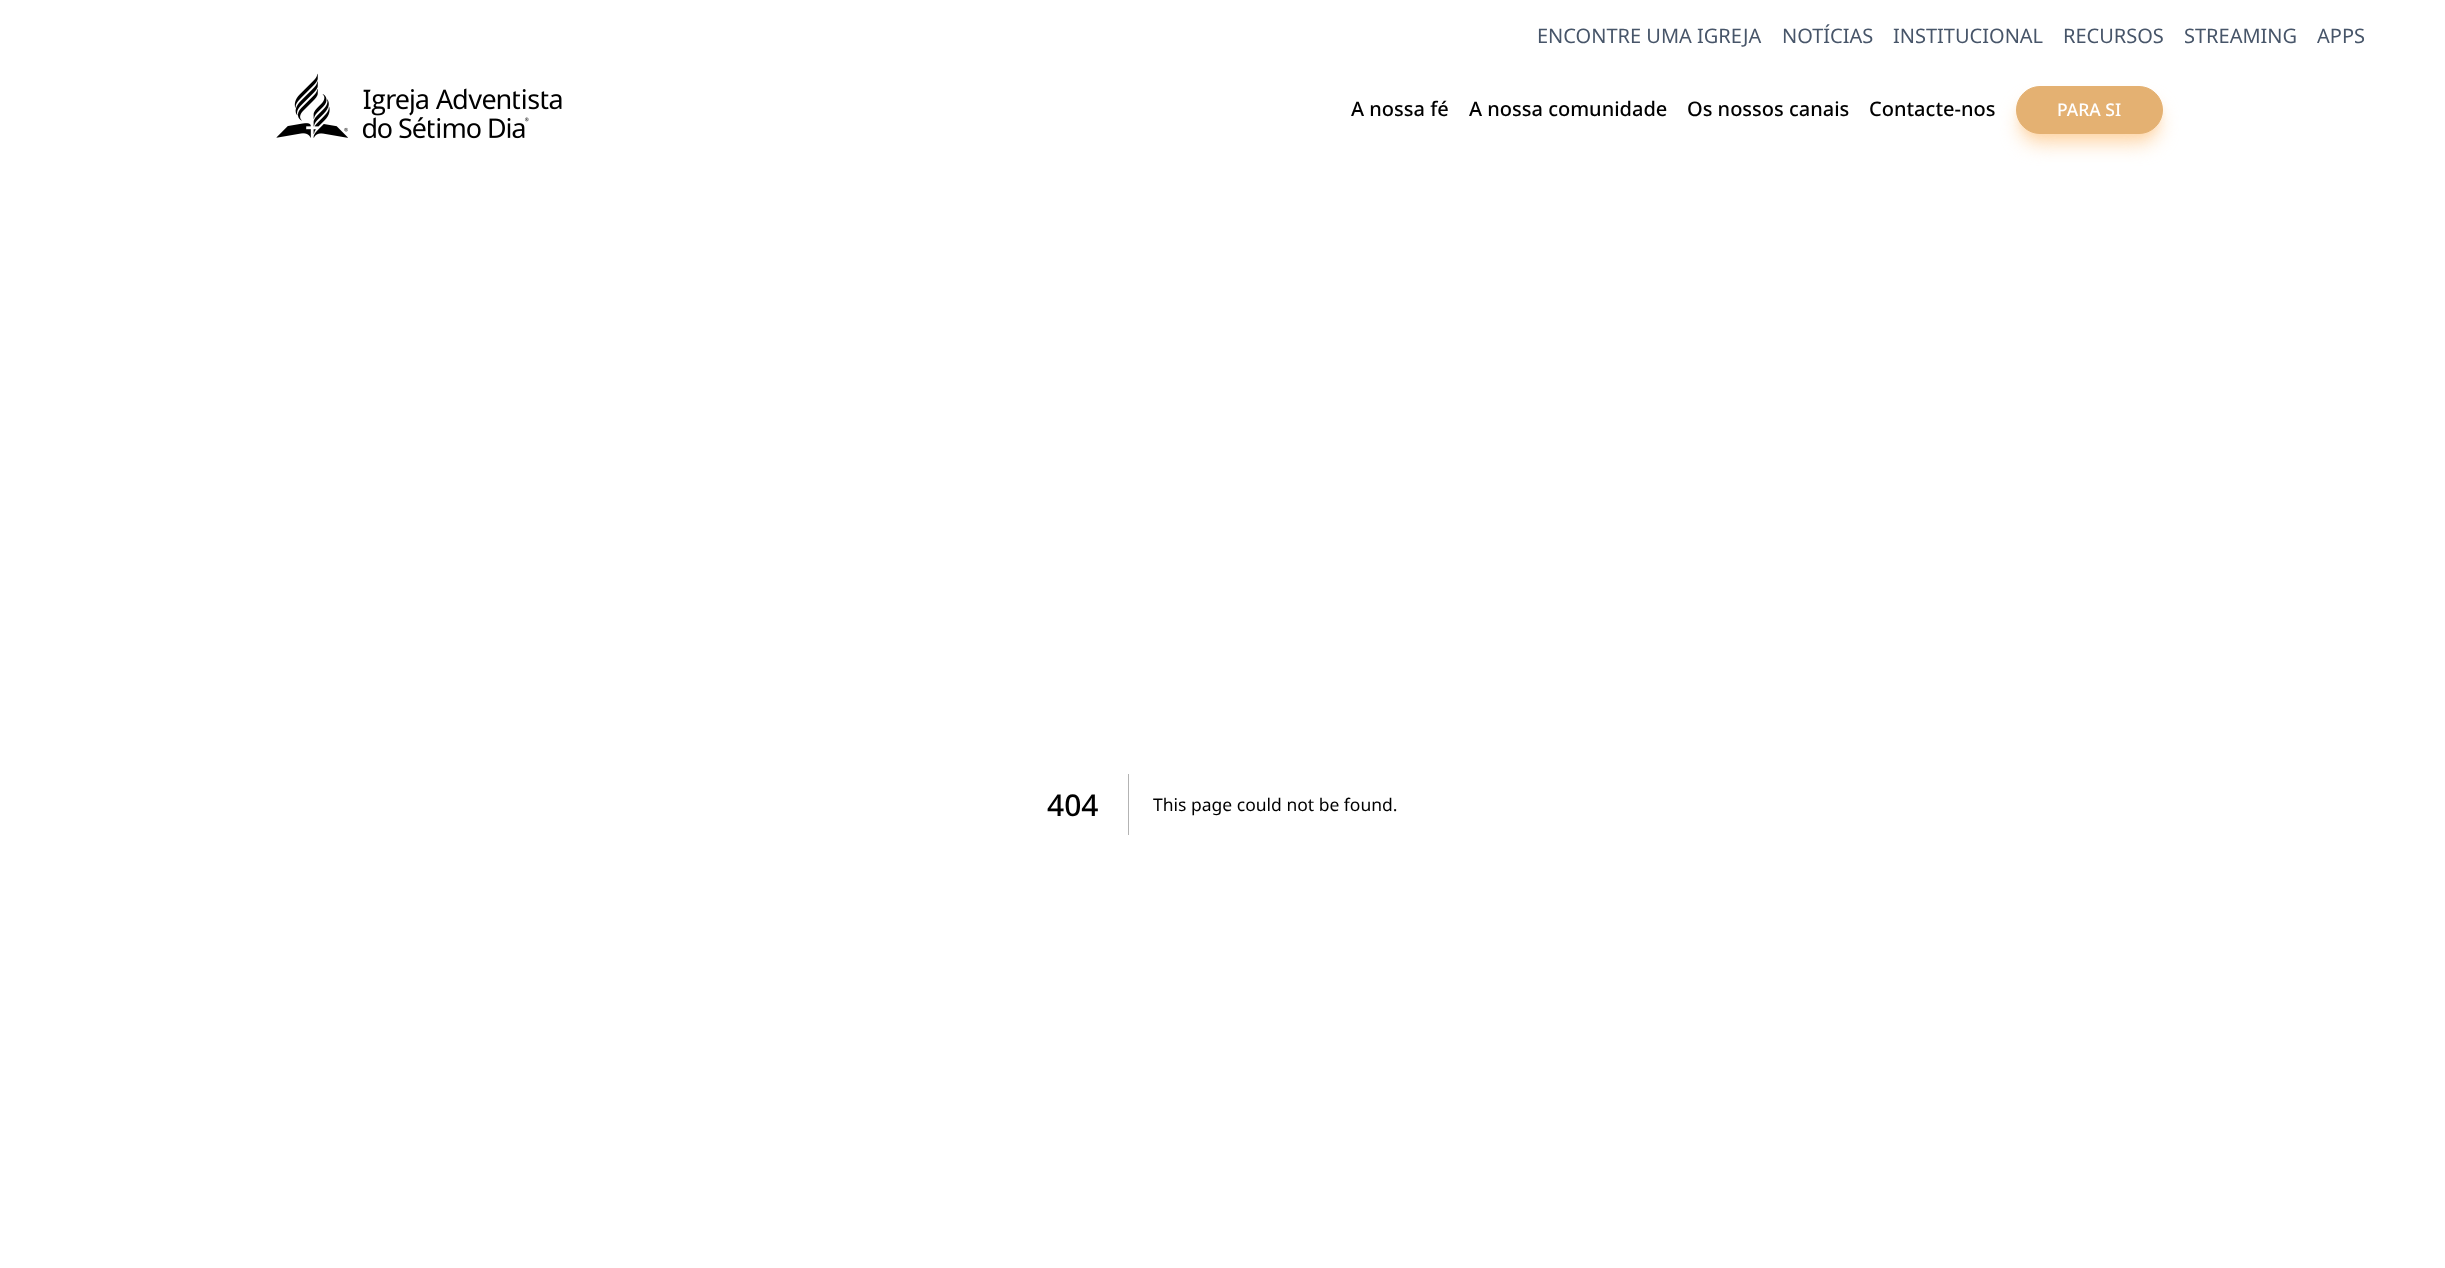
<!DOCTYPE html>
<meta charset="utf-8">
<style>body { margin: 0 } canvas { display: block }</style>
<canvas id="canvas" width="2445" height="1268"></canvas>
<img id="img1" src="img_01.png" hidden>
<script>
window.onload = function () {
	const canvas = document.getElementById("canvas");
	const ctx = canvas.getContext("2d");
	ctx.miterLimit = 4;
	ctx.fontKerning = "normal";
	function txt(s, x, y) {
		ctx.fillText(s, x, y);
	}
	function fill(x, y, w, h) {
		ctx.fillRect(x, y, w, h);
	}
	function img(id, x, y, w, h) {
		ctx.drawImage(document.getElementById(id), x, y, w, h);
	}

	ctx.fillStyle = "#FFFFFF";
	fill(0, 0, 2445, 1268);
	img("img1", 276, 73, 286, 66);
	ctx.fillStyle = "#FED7AA";
	ctx.filter = "blur(4px)";
	ctx.beginPath();
	ctx.roundRect(2021, 96, 137, 38, 19);
	ctx.fill();
	ctx.filter = "none";
	ctx.filter = "blur(9.5px)";
	ctx.beginPath();
	ctx.roundRect(2020, 103, 139, 40, 20);
	ctx.fill();
	ctx.filter = "none";
	ctx.fillStyle = "#E4B172";
	ctx.beginPath();
	ctx.roundRect(2016.5, 86.5, 146, 47, 23.5);
	ctx.fill();
	ctx.strokeStyle = "#E4B172";
	ctx.stroke();
	ctx.fillStyle = "#B3B3B3";
	fill(1128, 774, 1, 61);
	ctx.font = "20px Noto Sans";
	ctx.fillStyle = "#475569";
	txt("ENCONTRE UMA IGREJA", 1537, 43);
	txt("NOTÍCIAS", 1782, 43);
	txt("INSTITUCIONAL", 1893, 43);
	txt("RECURSOS", 2063, 43);
	txt("STREAMING", 2184, 43);
	txt("APPS", 2317, 43);
	ctx.font = "500 20px Noto Sans";
	ctx.fillStyle = "#000000";
	txt("A nossa fé", 1351, 116);
	txt("A nossa comunidade", 1469, 116);
	txt("Os nossos canais", 1687, 116);
	txt("Contacte-nos", 1869, 116);
	ctx.font = "500 17.5px Noto Sans";
	ctx.fillStyle = "#FFFFFF";
	txt("PARA SI", 2057, 116);
	ctx.font = "500 30px Noto Sans";
	ctx.fillStyle = "#000000";
	txt("404", 1047, 816);
	ctx.font = "17.5px Noto Sans";
	txt("This page could not be found.", 1153, 811);
};
</script>
